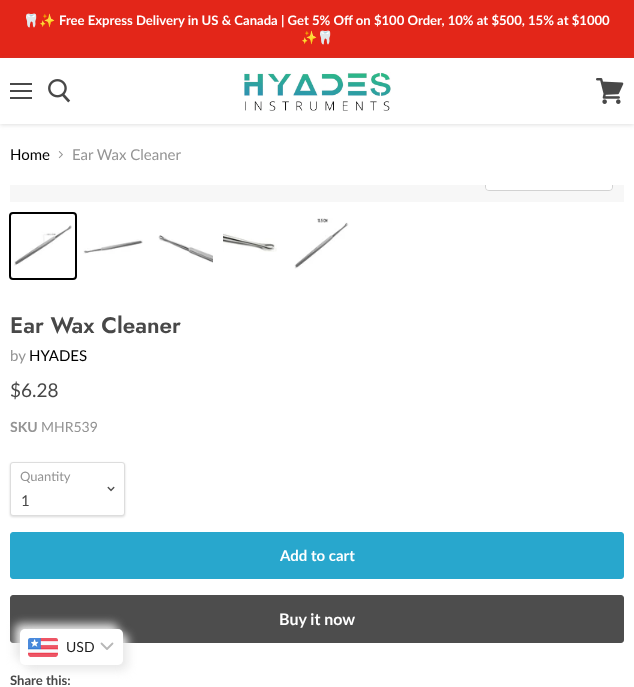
<!DOCTYPE html>
<meta charset="utf-8">
<style>body { margin: 0 } canvas { display: block }</style>
<canvas id="canvas" width="634" height="687"></canvas>
<img id="img1" src="img_01.png" hidden>
<img id="img2" src="img_02.png" hidden>
<img id="img3" src="img_03.png" hidden>
<img id="img4" src="img_04.png" hidden>
<img id="img5" src="img_05.png" hidden>
<img id="img6" src="img_06.png" hidden>
<img id="img7" src="img_07.png" hidden>
<img id="img8" src="img_08.png" hidden>
<img id="img9" src="img_09.png" hidden>
<img id="img10" src="img_10.png" hidden>
<img id="img11" src="img_11.png" hidden>
<script>
window.onload = function () {
	const canvas = document.getElementById("canvas");
	const ctx = canvas.getContext("2d");
	ctx.miterLimit = 4;
	ctx.fontKerning = "normal";
	function txt(s, x, y) {
		ctx.fillText(s, x, y);
	}
	function fill(x, y, w, h) {
		ctx.fillRect(x, y, w, h);
	}
	function round(x, y, w, h, r) {
		ctx.beginPath();
		ctx.roundRect(x, y, w, h, r);
		ctx.fill();
	}
	function img(id, x, y, w, h) {
		ctx.drawImage(document.getElementById(id), x, y, w, h);
	}

	ctx.fillStyle = "#FFFFFF";
	fill(0, 0, 634, 687);
	ctx.fillStyle = "#E32619";
	fill(0, 0, 634, 58);
	ctx.save();
	ctx.beginPath();
	ctx.moveTo(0, 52);
	ctx.lineTo(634, 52);
	ctx.lineTo(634, 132);
	ctx.lineTo(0, 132);
	ctx.closePath();
	ctx.moveTo(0, 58);
	ctx.lineTo(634, 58);
	ctx.lineTo(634, 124);
	ctx.lineTo(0, 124);
	ctx.closePath();
	ctx.clip("evenodd");
	ctx.fillStyle = "rgba(127, 127, 127, 0.25)";
	ctx.filter = "blur(2px)";
	ctx.beginPath();
	ctx.rect(0, 59, 634, 66);
	ctx.fill();
	ctx.filter = "none";
	ctx.restore();
	ctx.fillStyle = "#484848";
	fill(10, 83, 22, 2);
	fill(10, 90, 22, 2);
	fill(10, 97, 22, 2);
	img("img1", 48, 79, 23, 24);
	img("img2", 244, 72, 147, 39);
	img("img3", 596, 78, 28, 26);
	img("img4", 58, 151, 5, 8);
	ctx.fillStyle = "#F7F7F7";
	fill(10, 185, 614, 17);
	ctx.save();
	ctx.beginPath();
	ctx.rect(10, 185, 614, 17);
	ctx.clip();
	ctx.beginPath();
	ctx.roundRect(485.5, 162.5, 127, 28, 3.5);
	ctx.strokeStyle = "#D2D2D2";
	ctx.stroke();
	ctx.restore();
	ctx.fillStyle = "rgba(255, 255, 255, 0.9)";
	ctx.beginPath();
	ctx.roundRect(486, 185, 126, 5, [0, 0, 3, 3]);
	ctx.fill();
	ctx.beginPath();
	ctx.roundRect(10, 213, 66, 66, 3);
	ctx.strokeStyle = "#000000";
	ctx.lineWidth = 2;
	ctx.stroke();
	img("img5", 14, 225, 58, 41);
	img("img6", 83, 239, 60, 15);
	img("img7", 158, 235, 55, 28);
	img("img8", 223, 233, 54, 19);
	img("img9", 294, 218, 55, 51);
	ctx.fillStyle = "rgba(0, 0, 0, 0.15)";
	ctx.filter = "blur(1px)";
	ctx.beginPath();
	ctx.roundRect(10, 463, 115, 54, 3);
	ctx.fill();
	ctx.filter = "none";
	ctx.fillStyle = "#FFFFFF";
	ctx.beginPath();
	ctx.roundRect(10.5, 462.5, 114, 53, 2.5);
	ctx.fill();
	ctx.strokeStyle = "#DDDDDD";
	ctx.lineWidth = 1;
	ctx.stroke();
	img("img10", 107, 486, 8, 6);
	ctx.fillStyle = "#28A7CD";
	ctx.beginPath();
	ctx.roundRect(10.5, 532.5, 613, 46, 2.5);
	ctx.fill();
	ctx.strokeStyle = "#28A7CD";
	ctx.stroke();
	ctx.fillStyle = "#4D4D4D";
	ctx.beginPath();
	ctx.roundRect(10.5, 595.5, 613, 47, 2.5);
	ctx.fill();
	ctx.strokeStyle = "#4D4D4D";
	ctx.stroke();
	ctx.fillStyle = "#E8E8E8";
	ctx.filter = "blur(5px)";
	ctx.beginPath();
	ctx.roundRect(15, 624, 103, 36, 5);
	ctx.fill();
	ctx.filter = "none";
	ctx.filter = "blur(5px)";
	ctx.beginPath();
	ctx.roundRect(25, 634, 103, 36, 5);
	ctx.fill();
	ctx.filter = "none";
	ctx.fillStyle = "#FFFFFF";
	round(20, 629, 103, 36, 5);
	img("img11", 28, 638, 30, 19);
	ctx.beginPath();
	ctx.moveTo(101.5, 643.5);
	ctx.lineTo(107, 649);
	ctx.lineTo(112.5, 643.5);
	ctx.strokeStyle = "#B7B7B7";
	ctx.lineWidth = 1.8;
	ctx.lineCap = "round";
	ctx.lineJoin = "round";
	ctx.stroke();
	ctx.font = "bold 13.1px Noto Color Emoji";
	txt("🦷✨", 23, 25);
	ctx.font = "bold 13.1px Lato";
	txt("Free Express Delivery in US & Canada | Get 5% Off on $100 Order, 10% at $500, 15% at $1000", 59, 25);
	ctx.font = "bold 13.1px Noto Color Emoji";
	txt("✨🦷", 301, 42);
	ctx.font = "15px Lato";
	ctx.fillStyle = "#000000";
	txt("Home", 10, 160);
	ctx.fillStyle = "#949494";
	txt("Ear Wax Cleaner", 72, 160);
	ctx.font = "600 22.5px Jost";
	ctx.fillStyle = "#484848";
	txt("Ear Wax Cleaner", 10, 333);
	ctx.font = "15px Lato";
	ctx.fillStyle = "#949494";
	txt("by", 10, 361);
	ctx.fillStyle = "#000000";
	txt("HYADES", 29, 361);
	ctx.font = "19px Lato";
	ctx.fillStyle = "#484848";
	txt("$6.28", 10, 397);
	ctx.font = "bold 14px Lato";
	ctx.fillStyle = "#949494";
	txt("SKU", 10, 432);
	ctx.font = "14px Lato";
	txt("MHR539", 41, 432);
	ctx.font = "13px Lato";
	txt("Quantity", 20, 481);
	ctx.font = "15px Lato";
	ctx.fillStyle = "#484848";
	txt("1", 21, 506);
	ctx.font = "bold 15px Lato";
	ctx.fillStyle = "#FFFFFF";
	txt("Add to cart", 280, 561);
	ctx.font = "bold 16px Lato";
	txt("Buy it now", 279, 625);
	ctx.font = "bold 13.1px Lato";
	ctx.fillStyle = "#484848";
	txt("Share this:", 10, 685);
	ctx.font = "14px Lato";
	ctx.fillStyle = "#1E1E1E";
	txt("USD", 66, 652);
};
</script>
